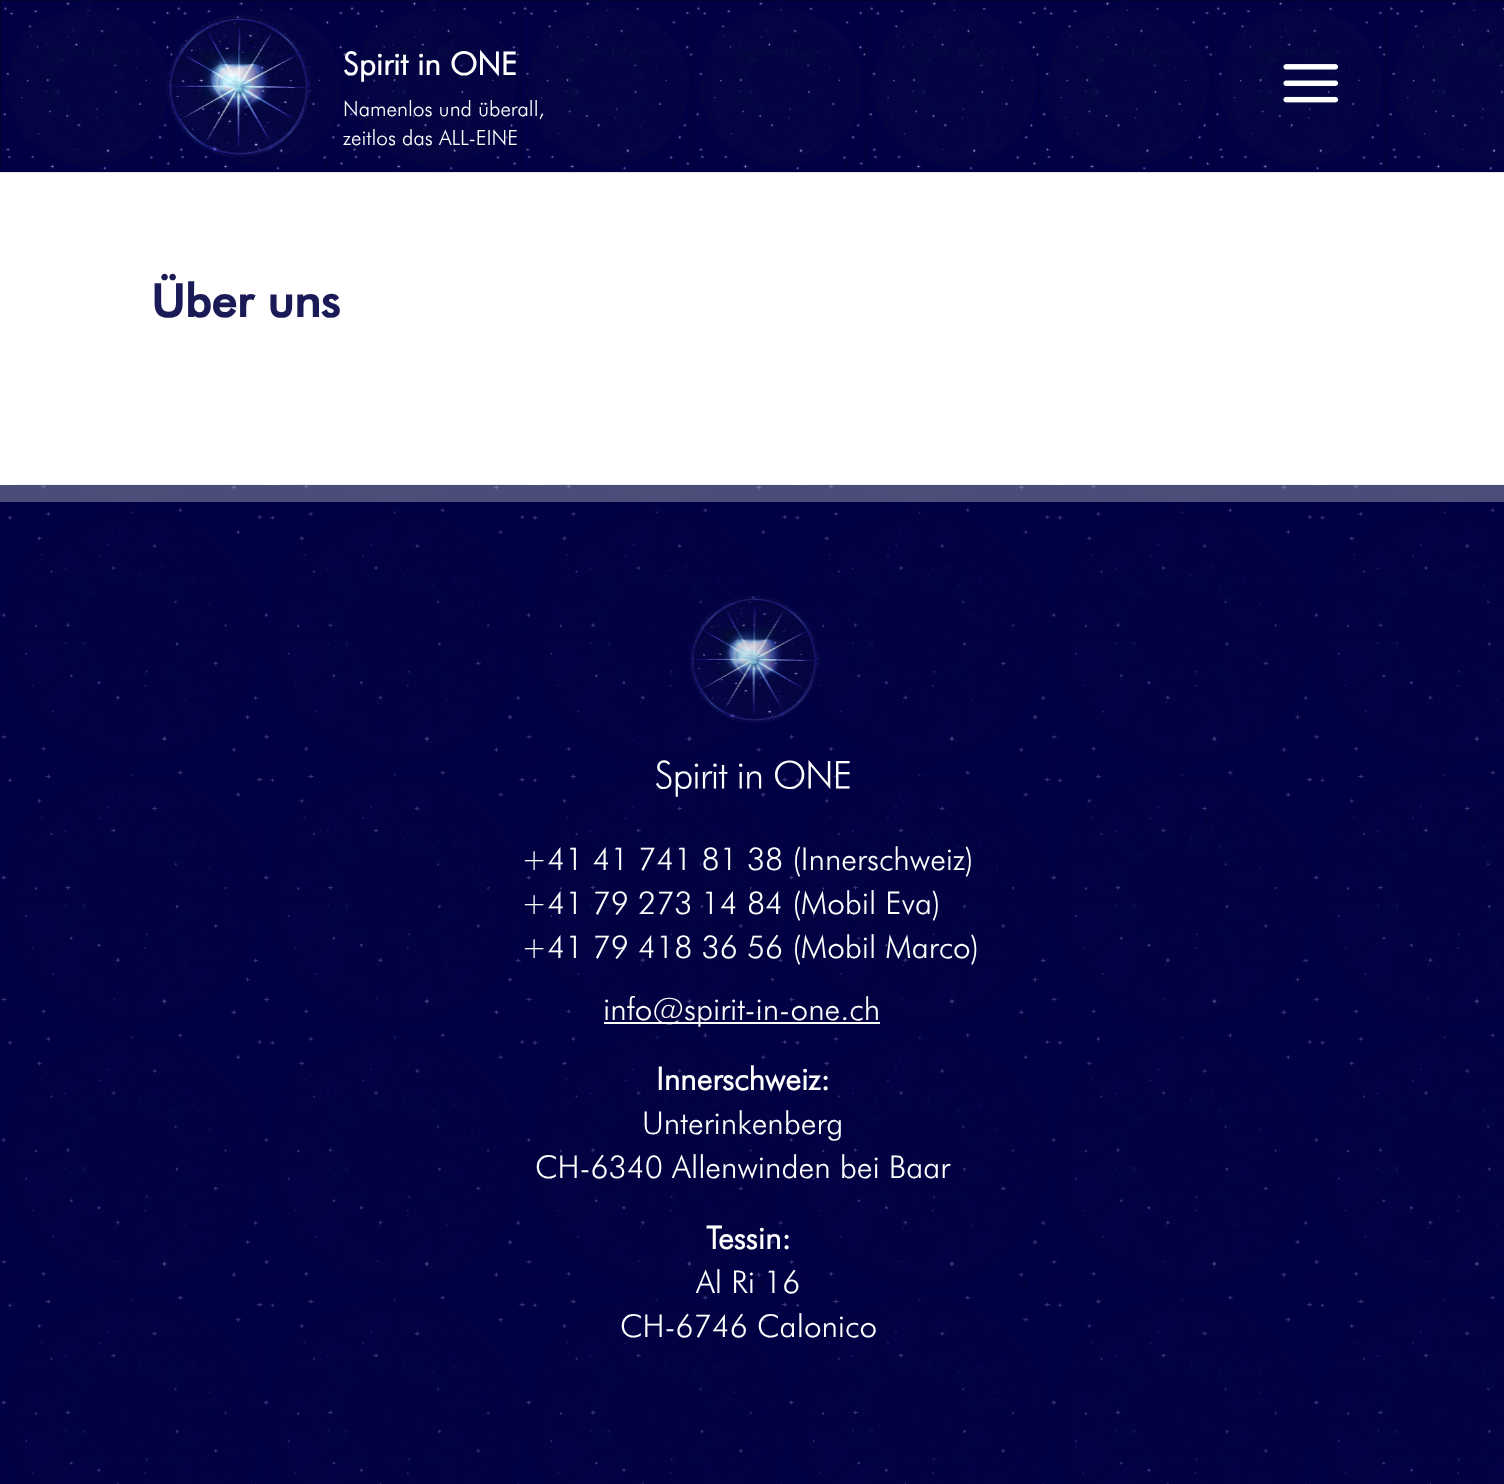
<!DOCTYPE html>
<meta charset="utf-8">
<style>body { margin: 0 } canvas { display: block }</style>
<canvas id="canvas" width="1504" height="1484"></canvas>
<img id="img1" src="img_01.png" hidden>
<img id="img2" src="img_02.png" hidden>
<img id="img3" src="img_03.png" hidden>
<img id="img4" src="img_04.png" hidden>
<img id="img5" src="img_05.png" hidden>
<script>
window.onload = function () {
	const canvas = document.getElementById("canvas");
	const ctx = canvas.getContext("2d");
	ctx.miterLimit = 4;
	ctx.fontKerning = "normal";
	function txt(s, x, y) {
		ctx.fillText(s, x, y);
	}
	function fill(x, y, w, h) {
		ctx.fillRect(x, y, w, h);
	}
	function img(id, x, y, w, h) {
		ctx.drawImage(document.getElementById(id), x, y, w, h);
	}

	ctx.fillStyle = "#FFFFFF";
	fill(0, 0, 1504, 1484);
	ctx.fillStyle = "#E6E6E6";
	fill(0, 172, 1504, 1);
	ctx.fillStyle = "#010044";
	fill(0, 0, 1504, 172);
	img("img1", 0, 0, 1504, 172);
	img("img2", 167, 16, 144, 143);
	img("img3", 1283, 64, 56, 39);
	fill(0, 485, 1504, 999);
	img("img4", 0, 484, 1504, 1000);
	ctx.fillStyle = "rgba(244, 244, 244, 0.31)";
	fill(0, 485, 1504, 17);
	img("img5", 689, 596, 130, 129);
	ctx.fillStyle = "#FFFFFF";
	fill(604, 1022, 276, 2);
	ctx.font = "bold 31.5px 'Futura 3'";
	txt("Spirit in ONE", 343, 75);
	ctx.font = "300 21px Futura";
	txt("Namenlos und überall,", 343, 116);
	txt("zeitlos das ALL-EINE", 343, 145);
	ctx.font = "bold 45.5px Futura";
	ctx.fillStyle = "#1A1A57";
	txt("Über uns", 151, 317);
	ctx.font = "bold 38.5px 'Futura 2'";
	ctx.fillStyle = "#FFFFFF";
	txt("Spirit in ONE", 654, 789);
	ctx.font = "300 31.5px Futura";
	txt("+41 41 741 81 38 (Innerschweiz)", 521, 870);
	txt("+41 79 273 14 84 (Mobil Eva)", 521, 914);
	txt("+41 79 418 36 56 (Mobil Marco)", 521, 958);
	txt("info@spirit-in-one.ch", 603, 1020);
	ctx.font = "bold 31.5px 'Futura 3'";
	txt("Innerschweiz:", 656, 1090);
	ctx.font = "300 31.5px Futura";
	txt("Unterinkenberg", 642, 1134);
	txt("CH-6340 Allenwinden bei Baar", 535, 1178);
	ctx.font = "bold 31.5px 'Futura 3'";
	txt("Tessin:", 706, 1249);
	ctx.font = "300 31.5px Futura";
	txt("Al Ri 16", 696, 1293);
	txt("CH-6746 Calonico", 620, 1337);
};
</script>
